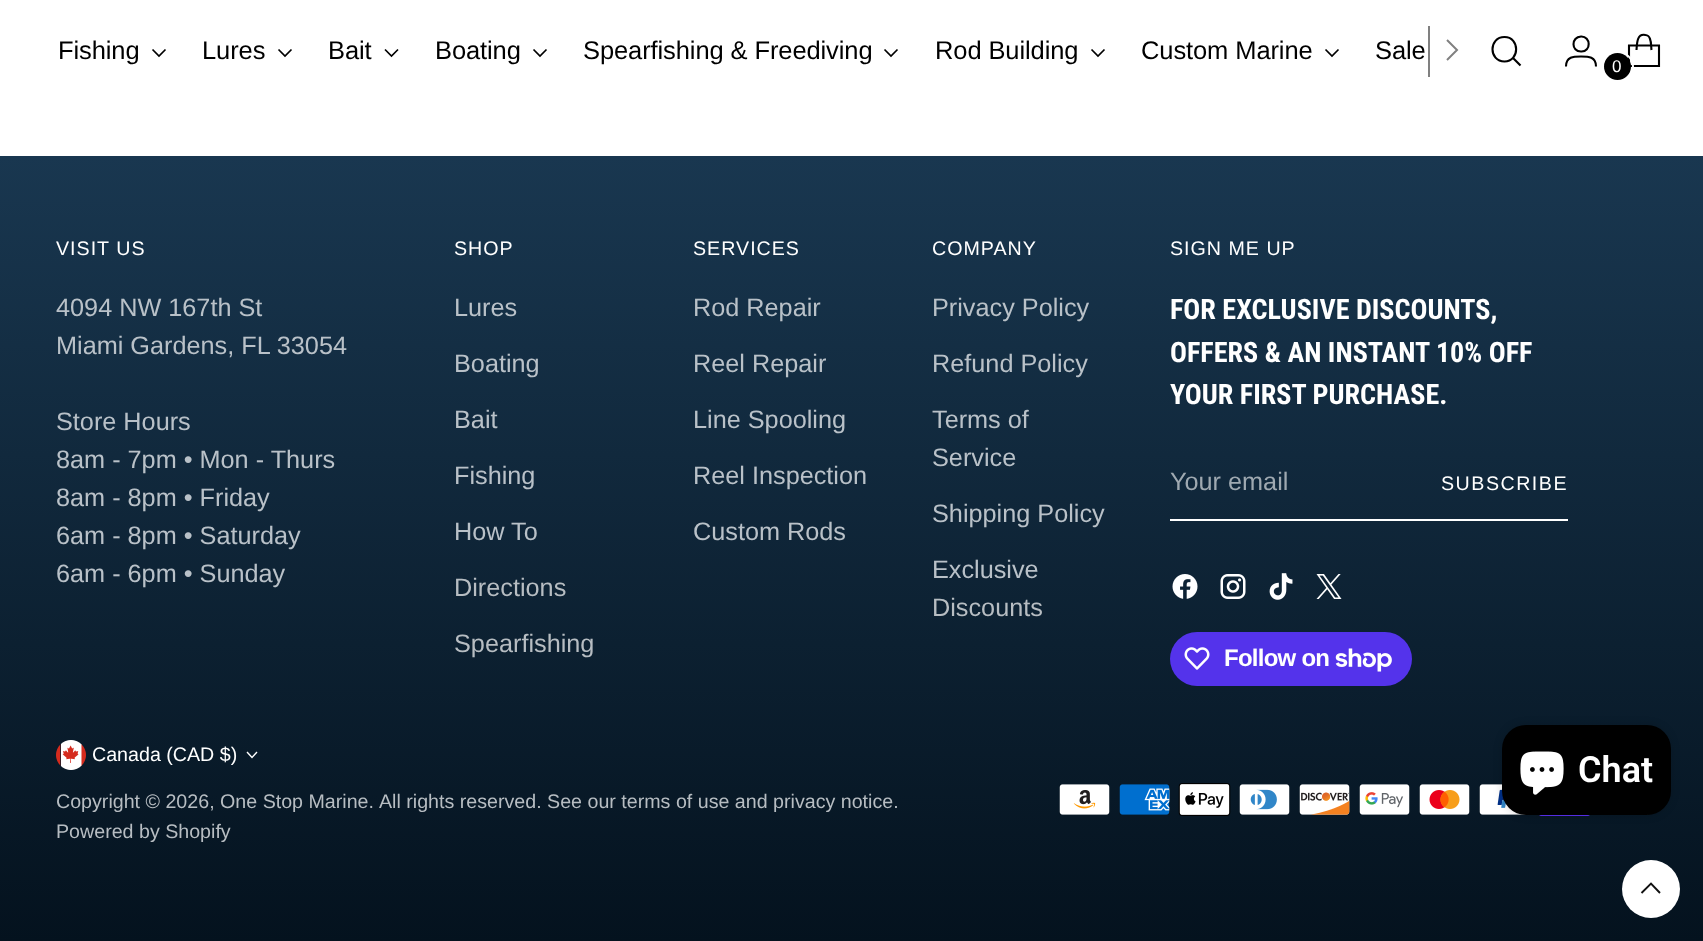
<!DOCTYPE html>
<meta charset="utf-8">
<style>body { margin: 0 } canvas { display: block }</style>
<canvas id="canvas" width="1703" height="941"></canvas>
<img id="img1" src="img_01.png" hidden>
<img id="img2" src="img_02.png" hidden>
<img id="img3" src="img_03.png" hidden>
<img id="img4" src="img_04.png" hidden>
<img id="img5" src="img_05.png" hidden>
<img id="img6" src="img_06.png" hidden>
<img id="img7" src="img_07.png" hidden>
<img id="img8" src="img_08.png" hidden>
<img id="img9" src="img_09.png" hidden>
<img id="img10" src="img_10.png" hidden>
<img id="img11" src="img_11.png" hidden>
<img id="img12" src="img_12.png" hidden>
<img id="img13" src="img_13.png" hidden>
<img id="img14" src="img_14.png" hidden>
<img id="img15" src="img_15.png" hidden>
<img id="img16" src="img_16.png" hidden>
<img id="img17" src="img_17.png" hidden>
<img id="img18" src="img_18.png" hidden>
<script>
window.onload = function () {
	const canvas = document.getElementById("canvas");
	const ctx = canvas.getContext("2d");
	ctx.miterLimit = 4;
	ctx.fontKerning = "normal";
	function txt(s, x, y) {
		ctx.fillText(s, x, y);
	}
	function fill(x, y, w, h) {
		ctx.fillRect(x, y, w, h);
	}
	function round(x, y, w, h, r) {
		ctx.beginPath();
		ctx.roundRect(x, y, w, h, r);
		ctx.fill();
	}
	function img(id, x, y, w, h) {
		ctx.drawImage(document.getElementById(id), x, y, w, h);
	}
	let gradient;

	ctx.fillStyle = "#FFFFFF";
	fill(0, 0, 1703, 941);
	ctx.beginPath();
	ctx.moveTo(152.5, 49.5);
	ctx.lineTo(159, 56);
	ctx.lineTo(165.5, 49.5);
	ctx.strokeStyle = "#000000";
	ctx.lineWidth = 1.7;
	ctx.stroke();
	ctx.beginPath();
	ctx.moveTo(278.5, 49.5);
	ctx.lineTo(285, 56);
	ctx.lineTo(291.5, 49.5);
	ctx.stroke();
	ctx.beginPath();
	ctx.moveTo(385, 49.5);
	ctx.lineTo(391.5, 56);
	ctx.lineTo(398, 49.5);
	ctx.stroke();
	ctx.beginPath();
	ctx.moveTo(533.5, 49.5);
	ctx.lineTo(540, 56);
	ctx.lineTo(546.5, 49.5);
	ctx.stroke();
	ctx.beginPath();
	ctx.moveTo(884.5, 49.5);
	ctx.lineTo(891, 56);
	ctx.lineTo(897.5, 49.5);
	ctx.stroke();
	ctx.beginPath();
	ctx.moveTo(1091.5, 49.5);
	ctx.lineTo(1098, 56);
	ctx.lineTo(1104.5, 49.5);
	ctx.stroke();
	ctx.beginPath();
	ctx.moveTo(1325.5, 49.5);
	ctx.lineTo(1332, 56);
	ctx.lineTo(1338.5, 49.5);
	ctx.stroke();
	ctx.fillStyle = "#808080";
	fill(1428, 26, 2, 51);
	ctx.beginPath();
	ctx.moveTo(1447, 60);
	ctx.lineTo(1457, 50);
	ctx.lineTo(1447, 40);
	ctx.strokeStyle = "#808080";
	ctx.lineWidth = 2;
	ctx.stroke();
	ctx.beginPath();
	ctx.moveTo(1504.5, 61.5);
	ctx.bezierCurveTo(1520, 61.5, 1520, 37, 1504.5, 37);
	ctx.bezierCurveTo(1488.5, 37, 1488.5, 61.5, 1504.5, 61.5);
	ctx.closePath();
	ctx.strokeStyle = "#000000";
	ctx.lineWidth = 2.1;
	ctx.lineCap = "round";
	ctx.stroke();
	ctx.beginPath();
	ctx.moveTo(1513, 58);
	ctx.lineTo(1520.5, 65.5);
	ctx.lineCap = "butt";
	ctx.stroke();
	ctx.beginPath();
	ctx.moveTo(1581, 51.5);
	ctx.bezierCurveTo(1591.5, 52, 1591, 36, 1581, 36.5);
	ctx.bezierCurveTo(1571, 37, 1571, 51.5, 1581, 51.5);
	ctx.closePath();
	ctx.moveTo(1566, 66.5);
	ctx.bezierCurveTo(1566, 56.5, 1573.5, 56.5, 1581, 56.5);
	ctx.bezierCurveTo(1588.5, 56.5, 1596, 56.5, 1596, 66.5);
	ctx.stroke();
	ctx.beginPath();
	ctx.moveTo(1651.5, 50);
	ctx.bezierCurveTo(1651, 46.5, 1651.5, 42.5, 1650, 39);
	ctx.bezierCurveTo(1649.5, 37, 1647.5, 35, 1645.5, 35);
	ctx.bezierCurveTo(1636.5, 33, 1637, 44.5, 1636.5, 50);
	ctx.lineJoin = "bevel";
	ctx.stroke();
	ctx.beginPath();
	ctx.moveTo(1659, 66);
	ctx.lineTo(1659, 45.5);
	ctx.lineTo(1629, 45.5);
	ctx.lineTo(1629, 66);
	ctx.closePath();
	ctx.lineJoin = "miter";
	ctx.stroke();
	ctx.beginPath();
	ctx.arc(1618, 67, 15, 0, Math.PI * 2);
	ctx.strokeStyle = "#FFFFFF";
	ctx.lineWidth = 2;
	ctx.stroke();
	ctx.fillStyle = "#000000";
	ctx.beginPath();
	ctx.arc(1617.5, 66.5, 13.5, 0, Math.PI * 2);
	ctx.fill();
	gradient = ctx.createLinearGradient(852, 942, 852, 156);
	gradient.addColorStop(0, "#04121E");
	gradient.addColorStop(1, "#193750");
	ctx.fillStyle = gradient;
	fill(0, 156, 1703, 785);
	ctx.fillStyle = "#FFFFFF";
	fill(1170, 519, 398, 2);
	img("img1", 1172, 574, 26, 25);
	img("img2", 1220, 574, 26, 25);
	img("img3", 1269, 573, 24, 27);
	img("img4", 1316, 574, 26, 25);
	ctx.fillStyle = "#5433EB";
	round(1170, 632, 242, 54, 27);
	img("img5", 1184, 647, 26, 23);
	img("img6", 1335, 648, 57, 24);
	img("img7", 56, 740, 30, 30);
	ctx.beginPath();
	ctx.moveTo(247, 752);
	ctx.lineTo(252, 757.5);
	ctx.lineTo(257, 752);
	ctx.lineWidth = 1.4;
	ctx.stroke();
	img("img8", 1059, 784, 51, 31);
	img("img9", 1119, 784, 51, 31);
	img("img10", 1178, 783, 53, 33);
	img("img11", 1239, 784, 51, 31);
	img("img12", 1299, 784, 51, 31);
	img("img13", 1359, 784, 51, 31);
	img("img14", 1419, 784, 51, 31);
	img("img15", 1479, 784, 47, 31);
	img("img16", 1647, 814, 3, 1);
	img("img17", 1539, 815, 51, 1);
	ctx.fillStyle = "#FFFFFF";
	ctx.beginPath();
	ctx.arc(1651, 889, 29, 0, Math.PI * 2);
	ctx.fill();
	ctx.beginPath();
	ctx.moveTo(1660, 893);
	ctx.lineTo(1651, 883.5);
	ctx.lineTo(1641.5, 893);
	ctx.strokeStyle = "#111111";
	ctx.lineWidth = 1.9;
	ctx.stroke();
	ctx.fillStyle = "rgba(0, 0, 0, 0.15)";
	ctx.filter = "blur(4px)";
	ctx.beginPath();
	ctx.roundRect(1502, 725, 169, 90, 24);
	ctx.fill();
	ctx.filter = "none";
	ctx.fillStyle = "#000000";
	round(1502, 725, 169, 90, 24);
	img("img18", 1520, 751, 44, 44);
	ctx.letterSpacing = "-0.1px";
	ctx.font = "25.5px Liberation Sans";
	txt("Fishing", 58, 59);
	txt("Lures", 202, 59);
	txt("Bait", 328, 59);
	txt("Boating", 435, 59);
	txt("Spearfishing & Freediving", 583, 59);
	txt("Rod Building", 935, 59);
	txt("Custom Marine", 1141, 59);
	txt("Sale", 1375, 59);
	ctx.letterSpacing = "0px";
	ctx.font = "17px Liberation Sans";
	ctx.fillStyle = "#FFFFFF";
	txt("0", 1612, 72);
	ctx.letterSpacing = "1px";
	ctx.font = "19.65px Liberation Sans";
	txt("VISIT US", 56, 255);
	ctx.letterSpacing = "0px";
	ctx.font = "25.25px Liberation Sans";
	ctx.fillStyle = "#B9C1C8";
	txt("4094 NW 167th St", 56, 316);
	txt("Miami Gardens, FL 33054", 56, 354);
	txt("Store Hours", 56, 430);
	txt("8am - 7pm • Mon - Thurs", 56, 468);
	txt("8am - 8pm • Friday", 56, 506);
	txt("6am - 8pm • Saturday", 56, 544);
	txt("6am - 6pm • Sunday", 56, 582);
	ctx.letterSpacing = "1px";
	ctx.font = "19.65px Liberation Sans";
	ctx.fillStyle = "#FFFFFF";
	txt("SHOP", 454, 255);
	ctx.letterSpacing = "0px";
	ctx.font = "25.25px Liberation Sans";
	ctx.fillStyle = "#B9C1C8";
	txt("Lures", 454, 316);
	txt("Boating", 454, 372);
	txt("Bait", 454, 428);
	txt("Fishing", 454, 484);
	txt("How To", 454, 540);
	ctx.fillStyle = "#B7BDC2";
	txt("Directions", 454, 596);
	txt("Spearfishing", 454, 652);
	ctx.letterSpacing = "1px";
	ctx.font = "19.65px Liberation Sans";
	ctx.fillStyle = "#FFFFFF";
	txt("SERVICES", 693, 255);
	ctx.letterSpacing = "0px";
	ctx.font = "25.25px Liberation Sans";
	ctx.fillStyle = "#B9C1C8";
	txt("Rod Repair", 693, 316);
	txt("Reel Repair", 693, 372);
	txt("Line Spooling", 693, 428);
	txt("Reel Inspection", 693, 484);
	txt("Custom Rods", 693, 540);
	ctx.letterSpacing = "1px";
	ctx.font = "19.65px Liberation Sans";
	ctx.fillStyle = "#FFFFFF";
	txt("COMPANY", 932, 255);
	ctx.letterSpacing = "0px";
	ctx.font = "25.25px Liberation Sans";
	ctx.fillStyle = "#B9C1C8";
	txt("Privacy Policy", 932, 316);
	txt("Refund Policy", 932, 372);
	txt("Terms of", 932, 428);
	txt("Service", 932, 466);
	txt("Shipping Policy", 932, 522);
	txt("Exclusive", 932, 578);
	ctx.fillStyle = "#B7BDC2";
	txt("Discounts", 932, 616);
	ctx.letterSpacing = "1px";
	ctx.font = "19.65px Liberation Sans";
	ctx.fillStyle = "#FFFFFF";
	txt("SIGN ME UP", 1170, 255);
	ctx.letterSpacing = "0px";
	ctx.font = "bold 28.1px Roboto Condensed";
	txt("FOR EXCLUSIVE DISCOUNTS,", 1170, 319);
	txt("OFFERS & AN INSTANT 10% OFF", 1170, 362);
	txt("YOUR FIRST PURCHASE.", 1170, 404);
	ctx.font = "25.25px Liberation Sans";
	ctx.fillStyle = "#9FA9B1";
	txt("Your email", 1170, 490);
	ctx.letterSpacing = "1.5px";
	ctx.font = "19.65px Liberation Sans";
	ctx.fillStyle = "#FFFFFF";
	txt("SUBSCRIBE", 1441, 490);
	ctx.letterSpacing = "-0.75px";
	ctx.font = "bold 24px Liberation Sans";
	txt("Follow on", 1224, 666);
	ctx.letterSpacing = "0px";
	ctx.font = "19.65px Liberation Sans";
	txt("Canada (CAD $)", 92, 761);
	ctx.fillStyle = "#B7BDC2";
	txt("Copyright © 2026, One Stop Marine.", 56, 808);
	txt("All rights reserved. See our terms of use and privacy notice.", 379, 808);
	txt("Powered by Shopify", 56, 838);
	ctx.font = "600 36px Roboto";
	ctx.fillStyle = "#FFFFFF";
	txt("Chat", 1578, 782);
};
</script>
